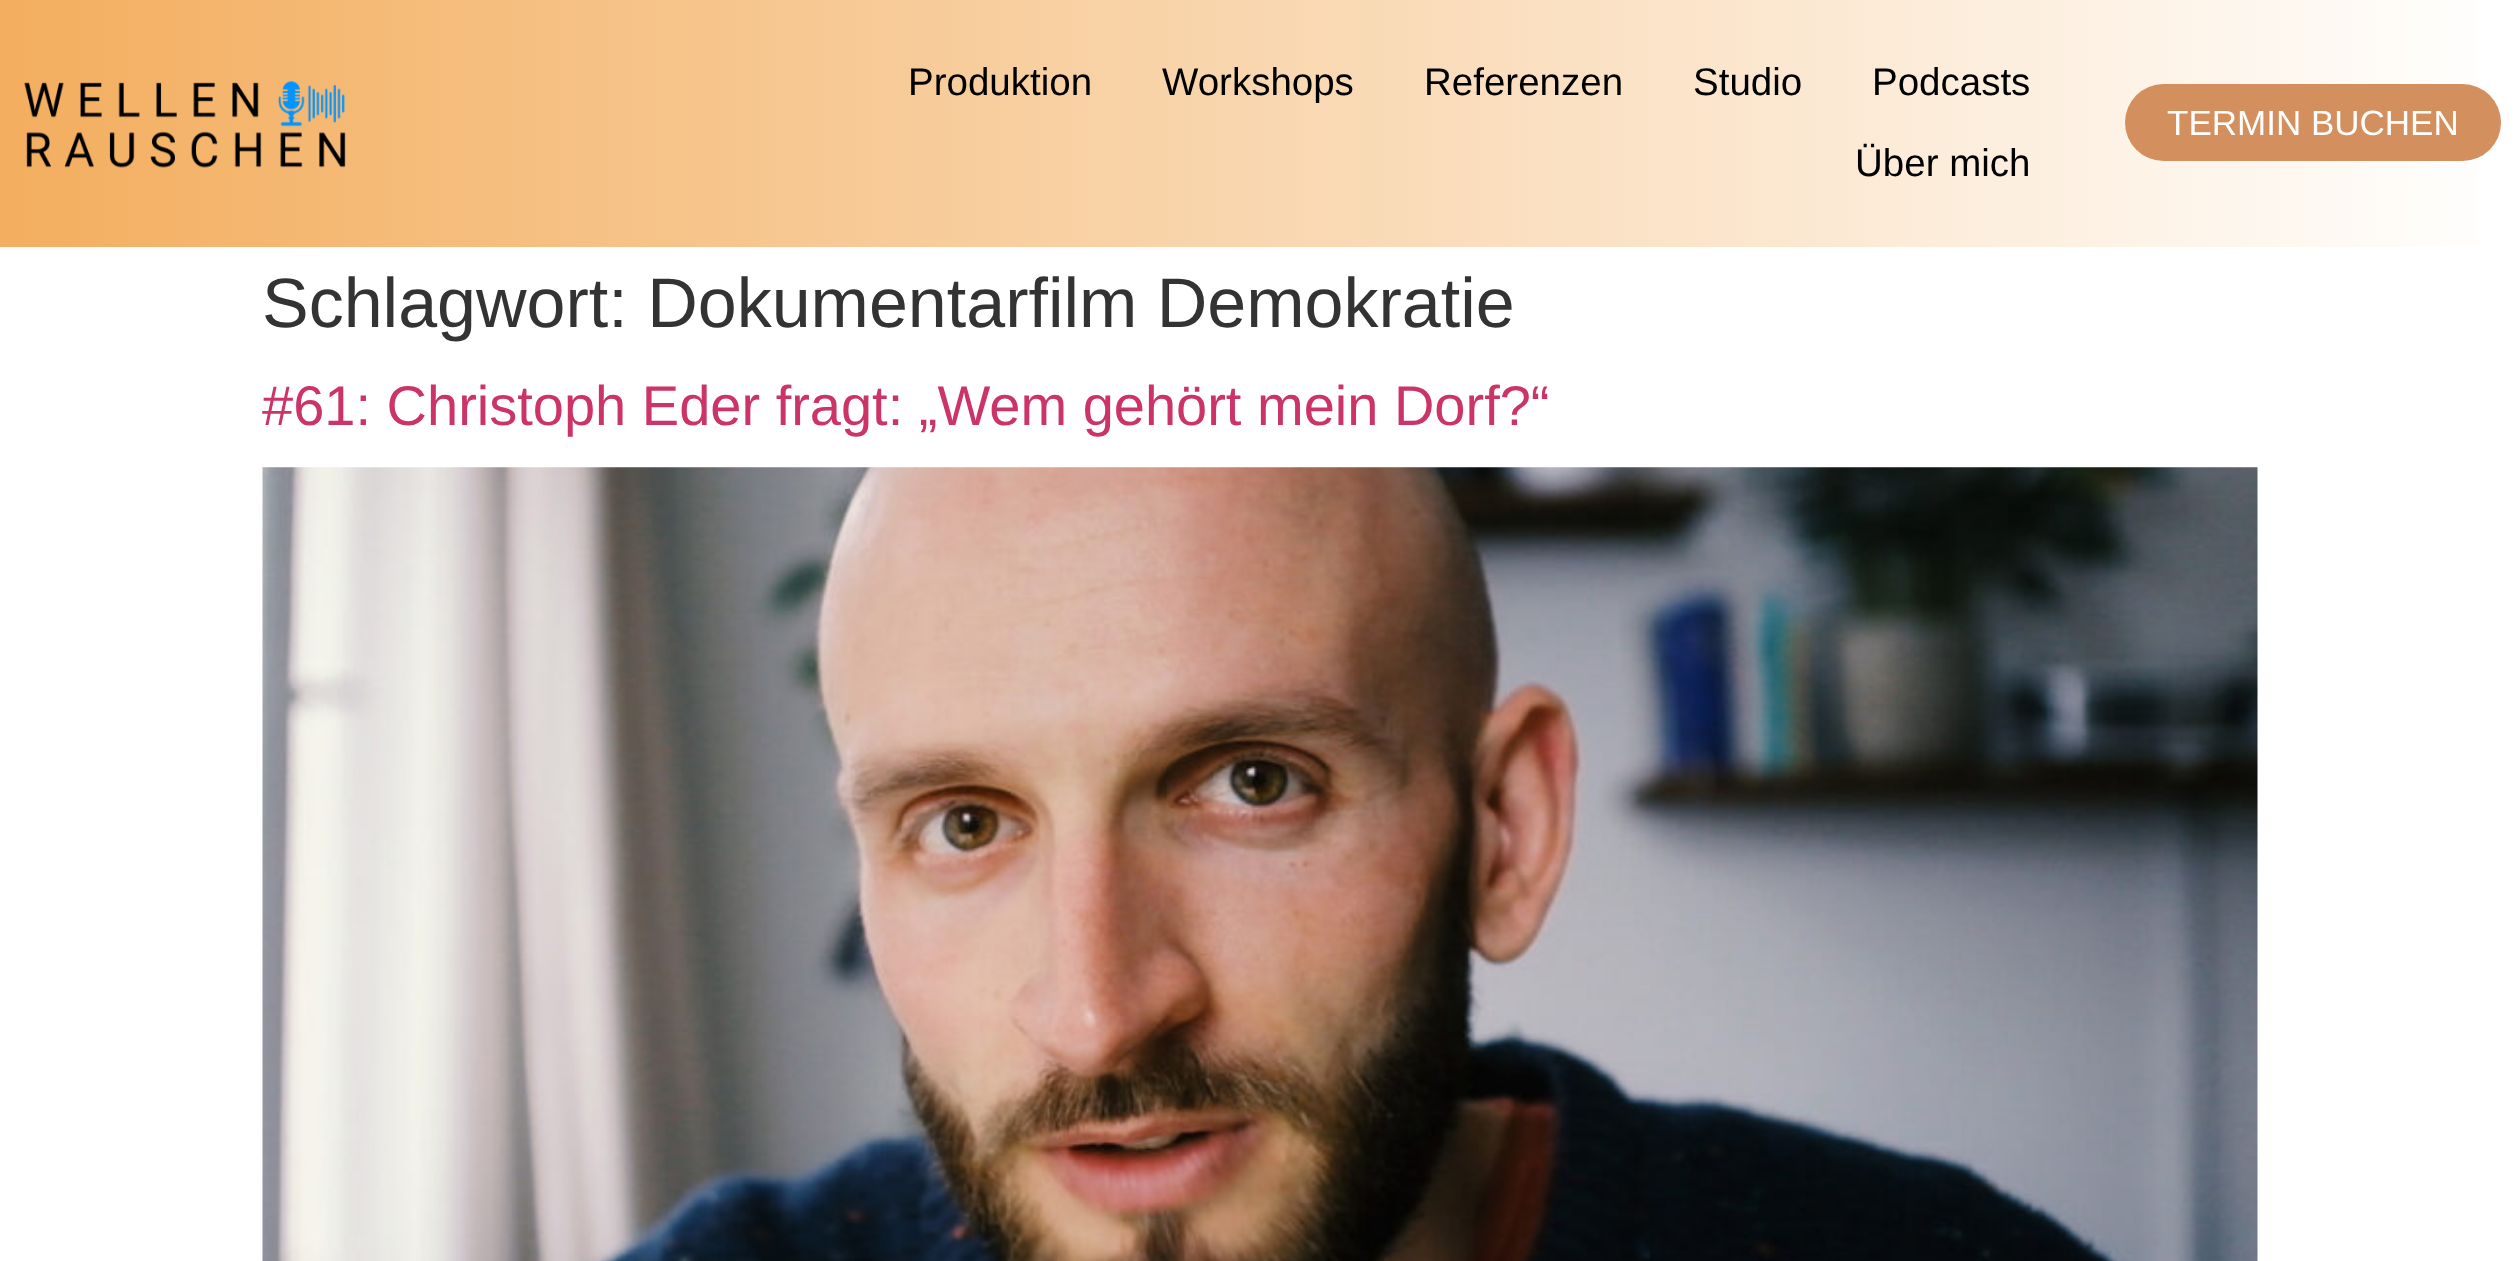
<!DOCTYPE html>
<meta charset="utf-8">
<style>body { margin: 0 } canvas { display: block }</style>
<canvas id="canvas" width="2517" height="1261"></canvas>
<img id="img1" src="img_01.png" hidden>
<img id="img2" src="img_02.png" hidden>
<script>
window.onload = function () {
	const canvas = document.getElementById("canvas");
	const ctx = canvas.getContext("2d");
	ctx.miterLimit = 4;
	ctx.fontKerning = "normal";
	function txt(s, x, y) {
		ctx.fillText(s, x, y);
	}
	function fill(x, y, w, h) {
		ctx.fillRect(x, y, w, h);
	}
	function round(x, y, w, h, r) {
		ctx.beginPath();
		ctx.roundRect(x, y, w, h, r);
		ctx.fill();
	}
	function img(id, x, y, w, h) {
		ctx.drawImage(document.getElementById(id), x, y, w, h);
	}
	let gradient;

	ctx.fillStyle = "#FFFFFF";
	fill(0, 0, 2517, 1261);
	gradient = ctx.createLinearGradient(0, 123, 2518, 123);
	gradient.addColorStop(0, "#F3AE5F");
	gradient.addColorStop(1, "#FFFFFF");
	ctx.fillStyle = gradient;
	fill(0, 0, 2479, 247);
	img("img1", 24, 80, 322, 88);
	ctx.fillStyle = "#D38F5E";
	round(2125, 84, 376, 77, 38.5);
	img("img2", 262, 467, 1996, 794);
	ctx.font = "38.5px Liberation Sans";
	ctx.fillStyle = "#000000";
	txt("Produktion", 908, 95);
	txt("Workshops", 1162, 95);
	txt("Referenzen", 1424, 95);
	txt("Studio", 1693, 95);
	txt("Podcasts", 1872, 95);
	txt("Über mich", 1855, 176);
	ctx.font = "35px Liberation Sans";
	ctx.fillStyle = "#FFFFFF";
	txt("TERMIN BUCHEN", 2167, 135);
	ctx.font = "70px Liberation Sans";
	ctx.fillStyle = "#333333";
	txt("Schlagwort: Dokumentarfilm Demokratie", 262, 327);
	ctx.font = "56px Liberation Sans";
	ctx.fillStyle = "#CC3366";
	txt("#61: Christoph Eder fragt: „Wem gehört mein Dorf?“", 262, 425);
};
</script>
